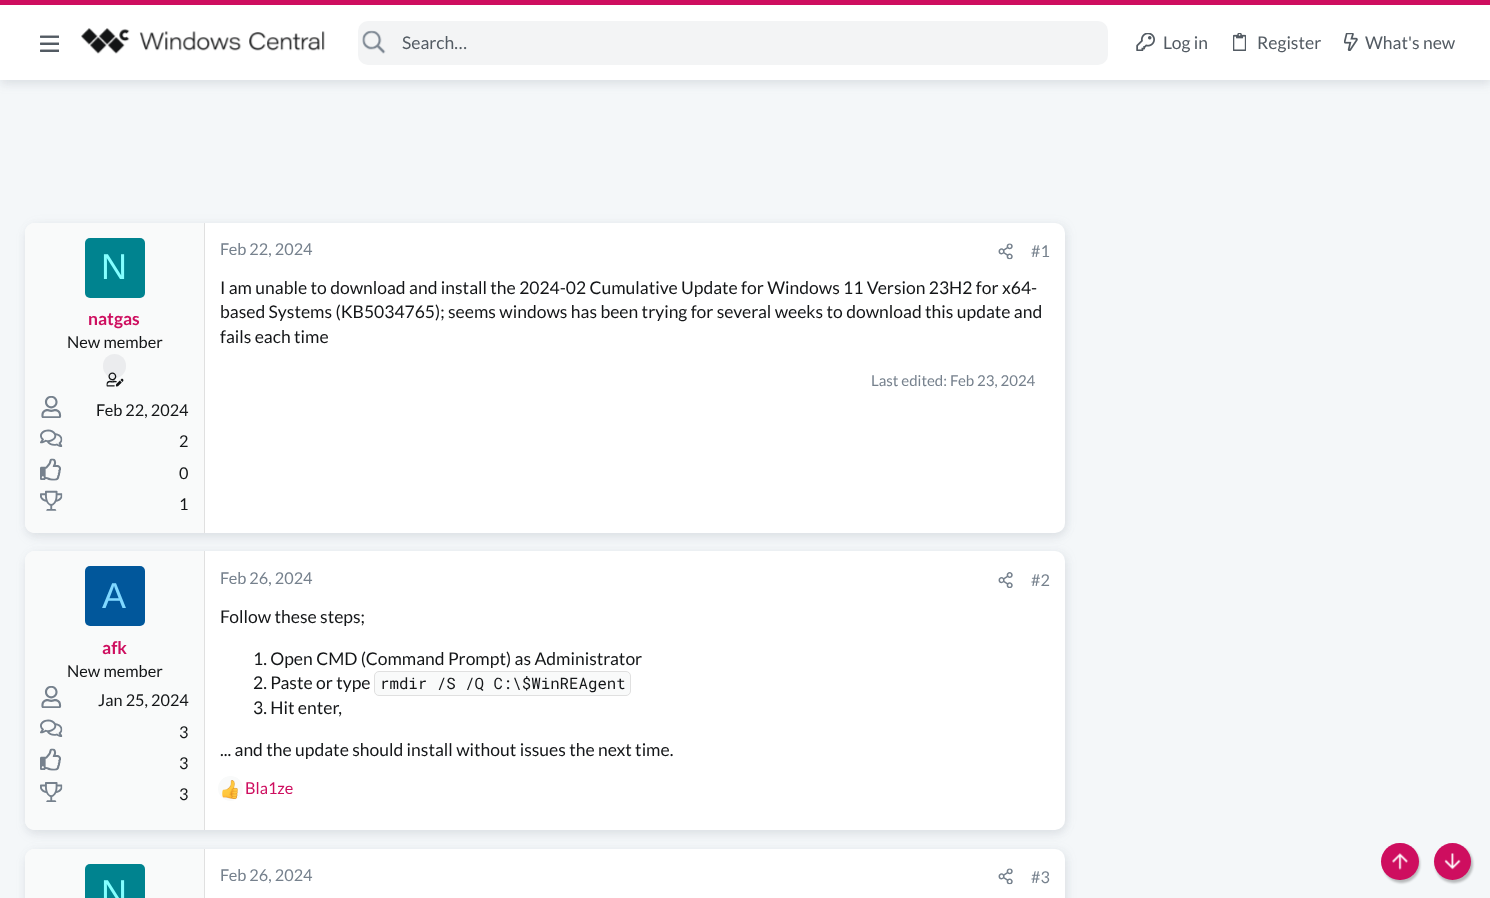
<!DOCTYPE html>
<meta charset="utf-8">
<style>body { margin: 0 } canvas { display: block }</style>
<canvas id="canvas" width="1490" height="898"></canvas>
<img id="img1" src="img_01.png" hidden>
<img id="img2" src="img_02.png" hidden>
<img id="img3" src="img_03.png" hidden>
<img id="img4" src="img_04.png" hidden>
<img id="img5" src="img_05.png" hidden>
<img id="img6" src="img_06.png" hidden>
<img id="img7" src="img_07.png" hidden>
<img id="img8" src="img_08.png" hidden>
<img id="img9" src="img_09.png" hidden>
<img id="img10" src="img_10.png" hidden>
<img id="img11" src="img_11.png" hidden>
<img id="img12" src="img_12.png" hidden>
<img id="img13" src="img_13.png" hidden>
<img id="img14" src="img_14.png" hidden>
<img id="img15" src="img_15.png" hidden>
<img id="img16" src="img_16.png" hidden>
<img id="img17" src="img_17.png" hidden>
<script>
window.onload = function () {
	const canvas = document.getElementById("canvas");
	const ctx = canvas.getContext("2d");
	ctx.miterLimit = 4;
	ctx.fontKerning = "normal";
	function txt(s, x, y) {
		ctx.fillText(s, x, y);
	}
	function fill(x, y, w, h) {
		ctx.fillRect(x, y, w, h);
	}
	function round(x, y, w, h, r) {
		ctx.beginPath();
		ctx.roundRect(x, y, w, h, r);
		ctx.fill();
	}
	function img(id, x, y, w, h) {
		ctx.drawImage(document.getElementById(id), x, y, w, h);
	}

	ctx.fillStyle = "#F4F7F9";
	fill(0, 0, 1490, 898);
	ctx.fillStyle = "rgba(107, 119, 128, 0.08)";
	ctx.filter = "blur(5px)";
	ctx.beginPath();
	ctx.rect(3, 0, 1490, 80);
	ctx.fill();
	ctx.filter = "none";
	ctx.fillStyle = "rgba(107, 119, 128, 0.12)";
	ctx.filter = "blur(5px)";
	ctx.beginPath();
	ctx.rect(0, 5, 1490, 80);
	ctx.fill();
	ctx.filter = "none";
	ctx.fillStyle = "#FFFFFF";
	fill(0, 5, 1490, 75);
	ctx.fillStyle = "#CE0E5F";
	fill(0, 0, 1490, 5);
	img("img1", 40, 35, 19, 17);
	img("img2", 81, 28, 244, 26);
	ctx.fillStyle = "#F3F4F5";
	round(358, 21, 750, 44, 10);
	img("img3", 362, 30, 24, 24);
	img("img4", 1136, 33, 19, 18);
	img("img5", 1233, 33, 13, 18);
	img("img6", 1344, 33, 14, 18);
	ctx.fillStyle = "rgba(107, 119, 128, 0.08)";
	ctx.filter = "blur(5px)";
	ctx.beginPath();
	ctx.roundRect(28, 223, 1040, 310, 10);
	ctx.fill();
	ctx.filter = "none";
	ctx.fillStyle = "rgba(107, 119, 128, 0.12)";
	ctx.filter = "blur(5px)";
	ctx.beginPath();
	ctx.roundRect(25, 228, 1040, 310, 10);
	ctx.fill();
	ctx.filter = "none";
	ctx.fillStyle = "#FFFFFF";
	round(25, 223, 1040, 310, 10);
	ctx.fillStyle = "#F9FAFA";
	ctx.beginPath();
	ctx.roundRect(25, 223, 180, 310, [9, 0, 0, 9]);
	ctx.fill();
	ctx.fillStyle = "#E0E0E0";
	fill(204, 223, 1, 310);
	ctx.fillStyle = "#00838F";
	round(85, 238, 60, 60, 5);
	ctx.fillStyle = "#EBECEE";
	round(103, 354, 23, 24, 11.5);
	img("img7", 106, 372, 18, 15);
	img("img8", 41, 396, 21, 22);
	img("img9", 40, 429, 23, 18);
	img("img10", 40, 458, 21, 23);
	img("img11", 40, 490, 23, 21);
	img("img12", 998, 243, 15, 17);
	ctx.fillStyle = "rgba(107, 119, 128, 0.08)";
	ctx.filter = "blur(5px)";
	ctx.beginPath();
	ctx.roundRect(28, 551, 1040, 279, 10);
	ctx.fill();
	ctx.filter = "none";
	ctx.fillStyle = "rgba(107, 119, 128, 0.12)";
	ctx.filter = "blur(5px)";
	ctx.beginPath();
	ctx.roundRect(25, 556, 1040, 279, 10);
	ctx.fill();
	ctx.filter = "none";
	ctx.fillStyle = "#FFFFFF";
	round(25, 551, 1040, 279, 10);
	ctx.fillStyle = "#F9FAFA";
	ctx.beginPath();
	ctx.roundRect(25, 551, 180, 279, [9, 0, 0, 9]);
	ctx.fill();
	ctx.fillStyle = "#E0E0E0";
	fill(204, 551, 1, 279);
	ctx.fillStyle = "#01579B";
	round(85, 566, 60, 60, 5);
	img("img8", 41, 686, 21, 22);
	img("img9", 40, 719, 23, 18);
	img("img10", 40, 748, 21, 23);
	img("img13", 40, 782, 23, 20);
	img("img14", 998, 572, 15, 16);
	ctx.fillStyle = "#F9FAFA";
	ctx.beginPath();
	ctx.roundRect(374.5, 671.5, 256, 24, 4.5);
	ctx.fill();
	ctx.strokeStyle = "#E0E0E0";
	ctx.stroke();
	ctx.beginPath();
	ctx.arc(230.5, 788.5, 12.5, 0, Math.PI * 2);
	ctx.fill();
	img("img15", 222, 780, 16, 19);
	ctx.fillStyle = "rgba(107, 119, 128, 0.08)";
	ctx.filter = "blur(5px)";
	ctx.beginPath();
	ctx.roundRect(28, 849, 1040, 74, 10);
	ctx.fill();
	ctx.filter = "none";
	ctx.fillStyle = "rgba(107, 119, 128, 0.12)";
	ctx.filter = "blur(5px)";
	ctx.beginPath();
	ctx.roundRect(25, 854, 1040, 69, 10);
	ctx.fill();
	ctx.filter = "none";
	ctx.fillStyle = "#FFFFFF";
	round(25, 849, 1040, 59, 10);
	img("img12", 998, 868, 15, 17);
	ctx.fillStyle = "#F9FAFA";
	ctx.beginPath();
	ctx.moveTo(34, 849);
	ctx.lineTo(205, 849);
	ctx.lineTo(205, 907);
	ctx.lineTo(34, 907);
	ctx.bezierCurveTo(29, 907, 25, 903, 25, 898);
	ctx.lineTo(25, 858);
	ctx.bezierCurveTo(25, 853, 29, 849, 34, 849);
	ctx.closePath();
	ctx.fill();
	ctx.fillStyle = "#E0E0E0";
	fill(204, 849, 1, 49);
	ctx.fillStyle = "#00838F";
	round(85, 864, 60, 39, 5);
	ctx.fillStyle = "rgba(0, 0, 0, 0.25)";
	ctx.filter = "blur(1px)";
	ctx.beginPath();
	ctx.roundRect(1383, 845, 37, 38, 18.5);
	ctx.fill();
	ctx.filter = "none";
	ctx.fillStyle = "#CE0E5F";
	round(1381, 843, 38, 37, 18.5);
	img("img16", 1392, 853, 17, 17);
	ctx.fillStyle = "rgba(0, 0, 0, 0.25)";
	ctx.filter = "blur(1px)";
	ctx.beginPath();
	ctx.roundRect(1435, 845, 38, 38, 19);
	ctx.fill();
	ctx.filter = "none";
	ctx.fillStyle = "#CE0E5F";
	ctx.beginPath();
	ctx.arc(1452.5, 861.5, 18.5, 0, Math.PI * 2);
	ctx.fill();
	img("img17", 1444, 853, 17, 17);
	ctx.font = "17.5px Lato";
	ctx.fillStyle = "#535B63";
	txt("Search…", 402, 49);
	txt("Log in", 1163, 49);
	txt("Register", 1257, 49);
	txt("What's new", 1365, 49);
	ctx.font = "36px Liberation Sans";
	ctx.fillStyle = "#84FFFF";
	txt("N", 101, 279);
	ctx.font = "bold 17.5px Lato";
	ctx.fillStyle = "#CE0E5F";
	txt("natgas", 88, 325);
	ctx.font = "16.25px Lato";
	ctx.fillStyle = "#141618";
	txt("New member", 67, 348);
	txt("Feb 22, 2024", 96, 416);
	txt("2", 179, 447);
	txt("0", 179, 479);
	txt("1", 179, 510);
	ctx.fillStyle = "#76818D";
	txt("Feb 22, 2024", 220, 255);
	txt("#1", 1031, 257);
	ctx.font = "17.5px Lato";
	ctx.fillStyle = "#141618";
	txt("I am unable to download and install the 2024-02 Cumulative Update for Windows 11 Version 23H2 for x64-", 220, 294);
	txt("based Systems (KB5034765); seems windows has been trying for several weeks to download this update and", 220, 318);
	txt("fails each time", 220, 343);
	ctx.font = "15px Lato";
	ctx.fillStyle = "#76818D";
	txt("Last edited: Feb 23, 2024", 871, 386);
	ctx.font = "36px Liberation Sans";
	ctx.fillStyle = "#80D8FF";
	txt("A", 102, 608);
	ctx.font = "bold 17.5px Lato";
	ctx.fillStyle = "#CE0E5F";
	txt("afk", 102, 654);
	ctx.font = "16.25px Lato";
	ctx.fillStyle = "#141618";
	txt("New member", 67, 677);
	txt("Jan 25, 2024", 98, 706);
	txt("3", 179, 738);
	txt("3", 179, 769);
	txt("3", 179, 800);
	ctx.fillStyle = "#76818D";
	txt("Feb 26, 2024", 220, 584);
	txt("#2", 1031, 586);
	ctx.font = "17.5px Lato";
	ctx.fillStyle = "#141618";
	txt("Follow these steps;", 220, 623);
	txt("1. Open CMD (Command Prompt) as Administrator", 253, 665);
	txt("2. Paste or type", 253, 689);
	ctx.font = "15.75px Roboto Mono";
	txt("rmdir /S /Q C:\\$WinREAgent", 380, 689);
	ctx.font = "17.5px Lato";
	txt("3. Hit enter,", 253, 714);
	txt("... and the update should install without issues the next time.", 220, 756);
	ctx.font = "16.25px Lato";
	ctx.fillStyle = "#CE0E5F";
	txt("Bla1ze", 245, 794);
	ctx.fillStyle = "#76818D";
	txt("Feb 26, 2024", 220, 881);
	txt("#3", 1031, 883);
	ctx.font = "36px Liberation Sans";
	ctx.fillStyle = "#84FFFF";
	txt("N", 101, 905);
};
</script>
